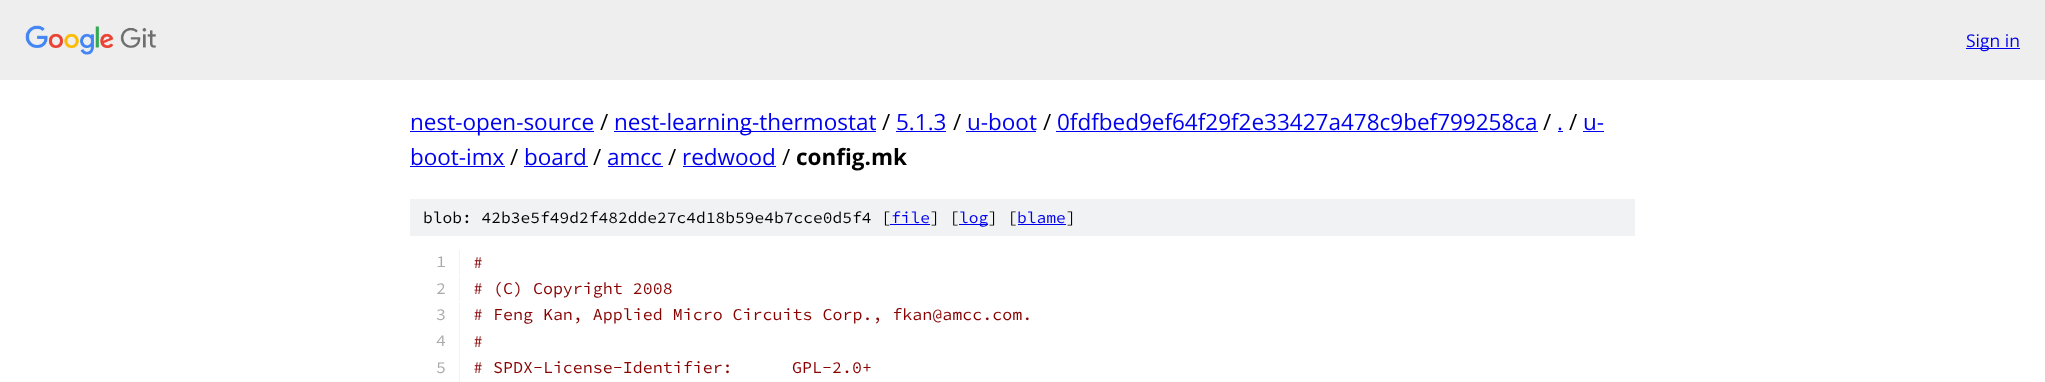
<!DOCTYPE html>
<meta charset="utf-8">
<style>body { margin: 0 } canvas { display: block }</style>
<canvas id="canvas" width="2045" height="382"></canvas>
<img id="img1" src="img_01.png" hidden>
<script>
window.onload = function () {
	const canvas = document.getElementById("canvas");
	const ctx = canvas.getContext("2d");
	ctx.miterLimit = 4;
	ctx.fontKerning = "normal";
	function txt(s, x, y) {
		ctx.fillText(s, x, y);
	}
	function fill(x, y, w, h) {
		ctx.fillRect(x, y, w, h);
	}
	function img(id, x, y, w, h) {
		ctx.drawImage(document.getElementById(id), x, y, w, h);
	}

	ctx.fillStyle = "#FFFFFF";
	fill(0, 0, 2045, 382);
	ctx.fillStyle = "#EEEEEE";
	fill(0, 0, 2045, 80);
	img("img1", 25, 25, 131, 30);
	ctx.fillStyle = "#0000EE";
	fill(1966, 48, 54, 1);
	fill(410, 131, 184, 1);
	fill(614, 131, 262, 1);
	fill(896, 131, 50, 1);
	fill(966, 131, 70, 1);
	fill(1056, 131, 482, 1);
	fill(1558, 131, 5, 1);
	fill(1583, 131, 21, 1);
	fill(410, 166, 95, 1);
	fill(524, 166, 64, 1);
	fill(608, 166, 55, 1);
	fill(683, 166, 93, 1);
	ctx.fillStyle = "#F1F2F3";
	fill(410, 199, 1225, 37);
	ctx.fillStyle = "#0000EE";
	fill(890, 224, 40, 1);
	fill(959, 224, 29, 1);
	fill(1018, 224, 48, 1);
	ctx.fillStyle = "#F1F2F3";
	fill(459, 250, 1, 25);
	fill(459, 276, 1, 25);
	fill(459, 303, 1, 79);
	ctx.font = "17.5px Open Sans";
	ctx.fillStyle = "#0000EE";
	txt("Sign in", 1966, 47);
	ctx.font = "22.5px Open Sans";
	txt("nest-open-source", 410, 130);
	ctx.fillStyle = "#000000";
	txt("/", 600, 130);
	ctx.fillStyle = "#0000EE";
	txt("nest-learning-thermostat", 614, 130);
	ctx.fillStyle = "#000000";
	txt("/", 882, 130);
	ctx.fillStyle = "#0000EE";
	txt("5.1.3", 896, 130);
	ctx.fillStyle = "#000000";
	txt("/", 953, 130);
	ctx.fillStyle = "#0000EE";
	txt("u-boot", 967, 130);
	ctx.fillStyle = "#000000";
	txt("/", 1043, 130);
	ctx.fillStyle = "#0000EE";
	txt("0fdfbed9ef64f29f2e33427a478c9bef799258ca", 1057, 130);
	ctx.fillStyle = "#000000";
	txt("/", 1543, 130);
	ctx.fillStyle = "#0000EE";
	txt(".", 1557, 130);
	ctx.fillStyle = "#000000";
	txt("/", 1569, 130);
	ctx.fillStyle = "#0000EE";
	txt("u-", 1583, 130);
	txt("boot-imx", 410, 165);
	ctx.fillStyle = "#000000";
	txt("/", 510, 165);
	ctx.fillStyle = "#0000EE";
	txt("board", 524, 165);
	ctx.fillStyle = "#000000";
	txt("/", 593, 165);
	ctx.fillStyle = "#0000EE";
	txt("amcc", 607, 165);
	ctx.fillStyle = "#000000";
	txt("/", 668, 165);
	ctx.fillStyle = "#0000EE";
	txt("redwood", 682, 165);
	ctx.fillStyle = "#000000";
	txt("/", 782, 165);
	ctx.font = "bold 22.5px Open Sans";
	txt("config.mk", 796, 165);
	ctx.font = "200 16.25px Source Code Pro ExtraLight";
	txt("blob: 42b3e5f49d2f482dde27c4d18b59e4b7cce0d5f4 [", 423, 223);
	ctx.fillStyle = "#0000EE";
	txt("file", 891, 223);
	ctx.fillStyle = "#000000";
	txt("] [", 930, 223);
	ctx.fillStyle = "#0000EE";
	txt("log", 959, 223);
	ctx.fillStyle = "#000000";
	txt("] [", 988, 223);
	ctx.fillStyle = "#0000EE";
	txt("blame", 1017, 223);
	ctx.fillStyle = "#000000";
	txt("]", 1066, 223);
	ctx.font = "200 16.65px Source Code Pro ExtraLight";
	ctx.fillStyle = "#AAAAAA";
	txt("1", 436, 267);
	ctx.fillStyle = "#880000";
	txt("#", 473, 268);
	ctx.fillStyle = "#AAAAAA";
	txt("2", 436, 294);
	ctx.fillStyle = "#880000";
	txt("# (C) Copyright 2008", 473, 294);
	ctx.fillStyle = "#AAAAAA";
	txt("3", 436, 320);
	ctx.fillStyle = "#880000";
	txt("# Feng Kan, Applied Micro Circuits Corp., fkan@amcc.com.", 473, 320);
	ctx.fillStyle = "#AAAAAA";
	txt("4", 436, 346);
	ctx.fillStyle = "#880000";
	txt("#", 473, 347);
	ctx.fillStyle = "#AAAAAA";
	txt("5", 436, 373);
	ctx.fillStyle = "#880000";
	txt("# SPDX-License-Identifier:", 473, 373);
	txt("GPL-2.0+", 792, 373);
};
</script>
